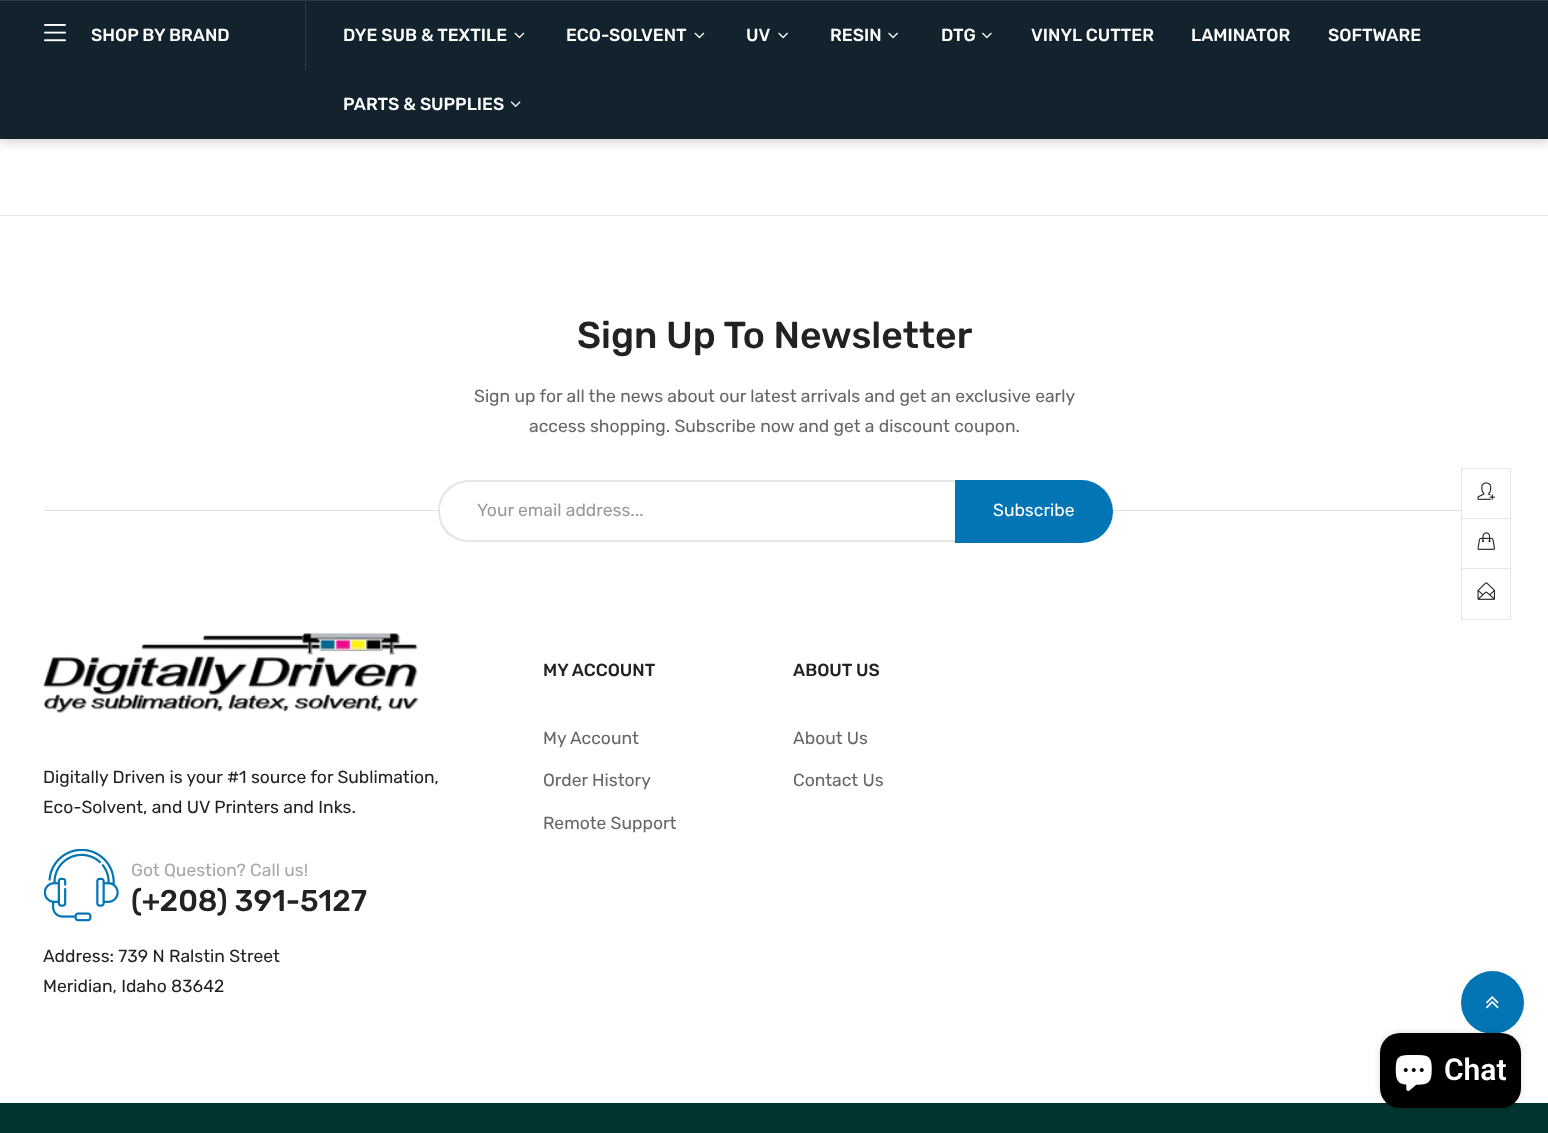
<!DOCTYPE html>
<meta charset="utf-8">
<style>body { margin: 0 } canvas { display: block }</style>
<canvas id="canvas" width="1548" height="1133"></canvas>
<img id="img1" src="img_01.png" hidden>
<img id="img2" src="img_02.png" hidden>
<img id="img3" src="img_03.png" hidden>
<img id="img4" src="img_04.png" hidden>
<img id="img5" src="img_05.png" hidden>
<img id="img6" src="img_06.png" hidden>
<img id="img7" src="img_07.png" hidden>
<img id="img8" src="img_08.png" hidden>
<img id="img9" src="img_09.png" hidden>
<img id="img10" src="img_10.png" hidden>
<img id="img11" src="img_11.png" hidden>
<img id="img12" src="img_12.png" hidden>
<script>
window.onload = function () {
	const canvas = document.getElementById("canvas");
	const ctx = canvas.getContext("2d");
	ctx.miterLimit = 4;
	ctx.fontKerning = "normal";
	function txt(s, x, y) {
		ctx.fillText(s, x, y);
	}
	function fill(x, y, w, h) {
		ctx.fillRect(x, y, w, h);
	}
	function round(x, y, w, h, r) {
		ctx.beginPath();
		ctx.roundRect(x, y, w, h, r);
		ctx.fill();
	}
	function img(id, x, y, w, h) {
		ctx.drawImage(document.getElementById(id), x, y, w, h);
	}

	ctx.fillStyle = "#FFFFFF";
	fill(0, 0, 1548, 1133);
	ctx.fillStyle = "#CCCCCC";
	ctx.filter = "blur(6px)";
	ctx.beginPath();
	ctx.rect(0, 3, 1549, 138);
	ctx.fill();
	ctx.filter = "none";
	ctx.fillStyle = "#12232E";
	fill(0, 1, 1548, 138);
	ctx.fillStyle = "#2A3943";
	fill(0, 0, 1548, 1);
	fill(305, 1, 1, 70);
	img("img1", 44, 24, 22, 18);
	img("img2", 514, 32, 11, 7);
	img("img2", 694, 32, 11, 7);
	img("img3", 778, 32, 10, 7);
	img("img3", 888, 32, 10, 7);
	img("img4", 982, 32, 10, 7);
	img("img5", 510, 101, 11, 6);
	ctx.fillStyle = "#E6E6E6";
	fill(0, 215, 1548, 1);
	ctx.fillStyle = "#E1E1E1";
	fill(44, 510, 1417, 1);
	ctx.fillStyle = "#FFFFFF";
	ctx.beginPath();
	ctx.roundRect(438, 480, 517, 63, [31.5, 0, 0, 31.5]);
	ctx.fill();
	ctx.fillStyle = "#E6E6E6";
	ctx.beginPath();
	ctx.moveTo(469, 480);
	ctx.lineTo(955, 480);
	ctx.lineTo(955, 542);
	ctx.lineTo(469, 542);
	ctx.bezierCurveTo(451, 542, 438, 529, 438, 511);
	ctx.bezierCurveTo(438, 494, 451, 480, 469, 480);
	ctx.closePath();
	ctx.moveTo(469, 482);
	ctx.lineTo(955, 482);
	ctx.lineTo(955, 540);
	ctx.lineTo(469, 540);
	ctx.bezierCurveTo(453, 540, 440, 527, 440, 511);
	ctx.bezierCurveTo(440, 495, 453, 482, 469, 482);
	ctx.closePath();
	ctx.fill("evenodd");
	ctx.fillStyle = "#0375B4";
	ctx.beginPath();
	ctx.roundRect(955, 480, 158, 63, [0, 31.5, 31.5, 0]);
	ctx.fill();
	img("img6", 43, 632, 376, 82);
	img("img7", 44, 849, 75, 73);
	ctx.fillStyle = "#00352F";
	fill(0, 1103, 1548, 30);
	ctx.strokeStyle = "#E6E6E6";
	ctx.strokeRect(1461.5, 468.5, 49, 151);
	ctx.fillStyle = "#E6E6E6";
	fill(1461, 518, 50, 1);
	img("img8", 1477, 482, 18, 18);
	fill(1461, 568, 50, 1);
	img("img9", 1477, 532, 18, 18);
	img("img10", 1477, 582, 18, 18);
	ctx.fillStyle = "#0375B4";
	ctx.beginPath();
	ctx.arc(1492.5, 1002.5, 31.5, 0, Math.PI * 2);
	ctx.fill();
	img("img11", 1486, 996, 13, 13);
	ctx.fillStyle = "rgba(0, 0, 0, 0.15)";
	ctx.filter = "blur(3px)";
	ctx.beginPath();
	ctx.roundRect(1380, 1033, 141, 75, 20);
	ctx.fill();
	ctx.filter = "none";
	ctx.fillStyle = "#000000";
	round(1380, 1033, 141, 75, 20);
	img("img12", 1395, 1055, 37, 36);
	ctx.font = "500 17.5px Rubik";
	ctx.fillStyle = "#FFFFFF";
	txt("SHOP BY BRAND", 91, 41);
	txt("DYE SUB & TEXTILE", 343, 41);
	txt("ECO-SOLVENT", 566, 41);
	txt("UV", 746, 41);
	txt("RESIN", 830, 41);
	txt("DTG", 941, 41);
	txt("VINYL CUTTER", 1031, 41);
	txt("LAMINATOR", 1191, 41);
	txt("SOFTWARE", 1328, 41);
	txt("PARTS & SUPPLIES", 343, 110);
	ctx.font = "500 37.5px Rubik";
	ctx.fillStyle = "#222222";
	txt("Sign Up To Newsletter", 577, 348);
	ctx.font = "17.5px Rubik";
	ctx.fillStyle = "#666666";
	txt("Sign up for all the news about our latest arrivals and get an exclusive early", 474, 402);
	txt("access shopping. Subscribe now and get a discount coupon.", 529, 432);
	ctx.fillStyle = "#999999";
	txt("Your email address...", 477, 516);
	ctx.fillStyle = "#FFFFFF";
	txt("Subscribe", 993, 516);
	ctx.font = "500 17.5px Rubik";
	ctx.fillStyle = "#222222";
	txt("MY ACCOUNT", 543, 676);
	ctx.font = "17.5px Rubik";
	ctx.fillStyle = "#666666";
	txt("My Account", 543, 744);
	txt("Order History", 543, 786);
	txt("Remote Support", 543, 829);
	ctx.font = "500 17.5px Rubik";
	ctx.fillStyle = "#222222";
	txt("ABOUT US", 793, 676);
	ctx.font = "17.5px Rubik";
	ctx.fillStyle = "#666666";
	txt("About Us", 793, 744);
	txt("Contact Us", 793, 786);
	ctx.fillStyle = "#222222";
	txt("Digitally Driven is your #1 source for Sublimation,", 43, 783);
	txt("Eco-Solvent, and UV Printers and Inks.", 43, 813);
	ctx.fillStyle = "#A7A7A7";
	txt("Got Question? Call us!", 131, 876);
	ctx.font = "500 30px Rubik";
	ctx.fillStyle = "#222222";
	txt("(+208) 391-5127", 131, 911);
	ctx.font = "17.5px Rubik";
	txt("Address: 739 N Ralstin Street", 43, 962);
	txt("Meridian, Idaho 83642", 43, 992);
	ctx.font = "600 30px Roboto";
	ctx.fillStyle = "#FFFFFF";
	txt("Chat", 1444, 1080);
};
</script>
